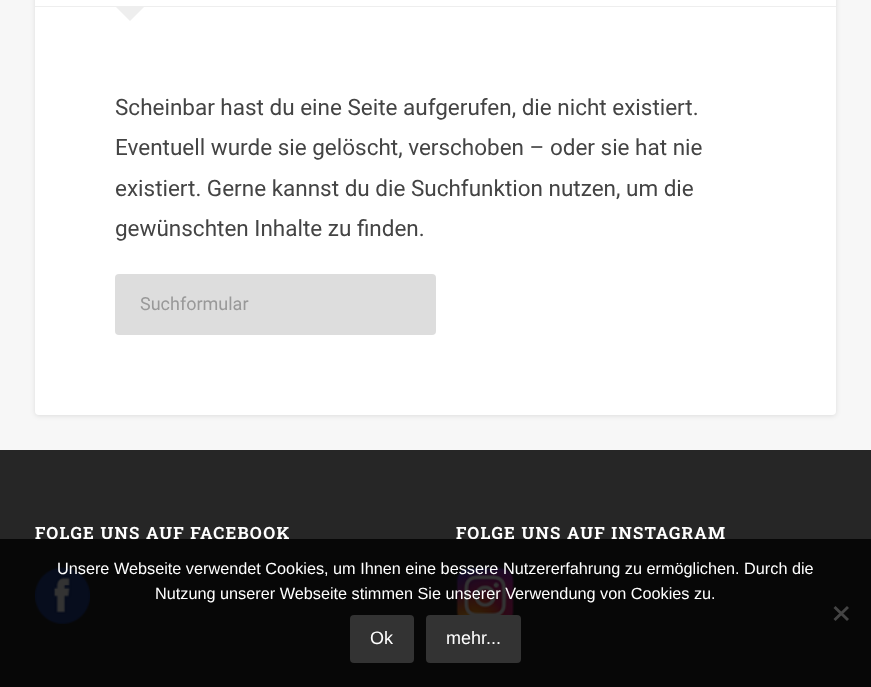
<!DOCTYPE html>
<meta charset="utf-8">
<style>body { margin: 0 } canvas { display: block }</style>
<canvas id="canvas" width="871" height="687"></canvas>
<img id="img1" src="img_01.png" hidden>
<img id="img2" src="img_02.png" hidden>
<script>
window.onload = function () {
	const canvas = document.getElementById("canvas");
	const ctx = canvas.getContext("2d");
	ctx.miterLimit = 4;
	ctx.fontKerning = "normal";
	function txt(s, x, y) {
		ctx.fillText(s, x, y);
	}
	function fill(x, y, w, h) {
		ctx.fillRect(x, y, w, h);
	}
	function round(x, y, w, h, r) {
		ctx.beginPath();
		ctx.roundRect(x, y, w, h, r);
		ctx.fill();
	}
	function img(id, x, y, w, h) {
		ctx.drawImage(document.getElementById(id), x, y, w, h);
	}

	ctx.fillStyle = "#F7F7F7";
	fill(0, 0, 871, 687);
	ctx.fillStyle = "rgba(0, 0, 0, 0.1)";
	ctx.filter = "blur(2.5px)";
	ctx.beginPath();
	ctx.roundRect(35, -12, 801, 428, 4);
	ctx.fill();
	ctx.filter = "none";
	ctx.fillStyle = "#FFFFFF";
	round(35, -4, 801, 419, 4);
	ctx.fillStyle = "#EEEEEE";
	fill(35, 6, 801, 1);
	ctx.beginPath();
	ctx.moveTo(115, 6);
	ctx.lineTo(145, 6);
	ctx.lineTo(130, 21);
	ctx.closePath();
	ctx.fill();
	ctx.fillStyle = "#DDDDDD";
	round(115, 274, 321, 61, 4);
	ctx.fillStyle = "#262626";
	fill(0, 450, 871, 237);
	img("img1", 35, 567, 55, 57);
	img("img2", 456, 567, 58, 48);
	ctx.font = "22.5px Roboto";
	ctx.fillStyle = "#444444";
	txt("Scheinbar hast du eine Seite aufgerufen, die nicht existiert.", 115, 115);
	txt("Eventuell wurde sie gelöscht, verschoben – oder sie hat nie", 115, 155);
	txt("existiert. Gerne kannst du die Suchfunktion nutzen, um die", 115, 196);
	txt("gewünschten Inhalte zu finden.", 115, 236);
	ctx.font = "18px Roboto";
	ctx.fillStyle = "#999999";
	txt("Suchformular", 140, 310);
	ctx.letterSpacing = "1.25px";
	ctx.font = "bold 16.9px Roboto Slab";
	ctx.fillStyle = "#FFFFFF";
	txt("FOLGE UNS AUF FACEBOOK", 35, 539);
	txt("FOLGE UNS AUF INSTAGRAM", 456, 539);
	ctx.fillStyle = "rgba(0, 0, 0, 0.8)";
	fill(0, 539, 871, 148);
	ctx.letterSpacing = "0px";
	ctx.font = "16.25px Liberation Sans";
	ctx.fillStyle = "#FFFFFF";
	txt("Unsere Webseite verwendet Cookies, um Ihnen eine bessere Nutzererfahrung zu ermöglichen. Durch die", 57, 574);
	txt("Nutzung unserer Webseite stimmen Sie unserer Verwendung von Cookies zu.", 155, 599);
	ctx.fillStyle = "#444444";
	ctx.beginPath();
	ctx.moveTo(847, 606);
	ctx.lineTo(849, 608);
	ctx.lineTo(835.5, 621);
	ctx.lineTo(833.5, 619);
	ctx.closePath();
	ctx.fill();
	ctx.beginPath();
	ctx.moveTo(833.5, 608);
	ctx.lineTo(835.5, 606);
	ctx.lineTo(849, 619);
	ctx.lineTo(847, 621);
	ctx.closePath();
	ctx.fill();
	ctx.fillStyle = "#333333";
	round(350, 615, 64, 48, 4);
	ctx.font = "18px Liberation Sans";
	ctx.fillStyle = "#FFFFFF";
	txt("Ok", 370, 644);
	ctx.fillStyle = "#333333";
	round(426, 615, 95, 48, 4);
	ctx.fillStyle = "#FFFFFF";
	txt("mehr...", 446, 644);
};
</script>
